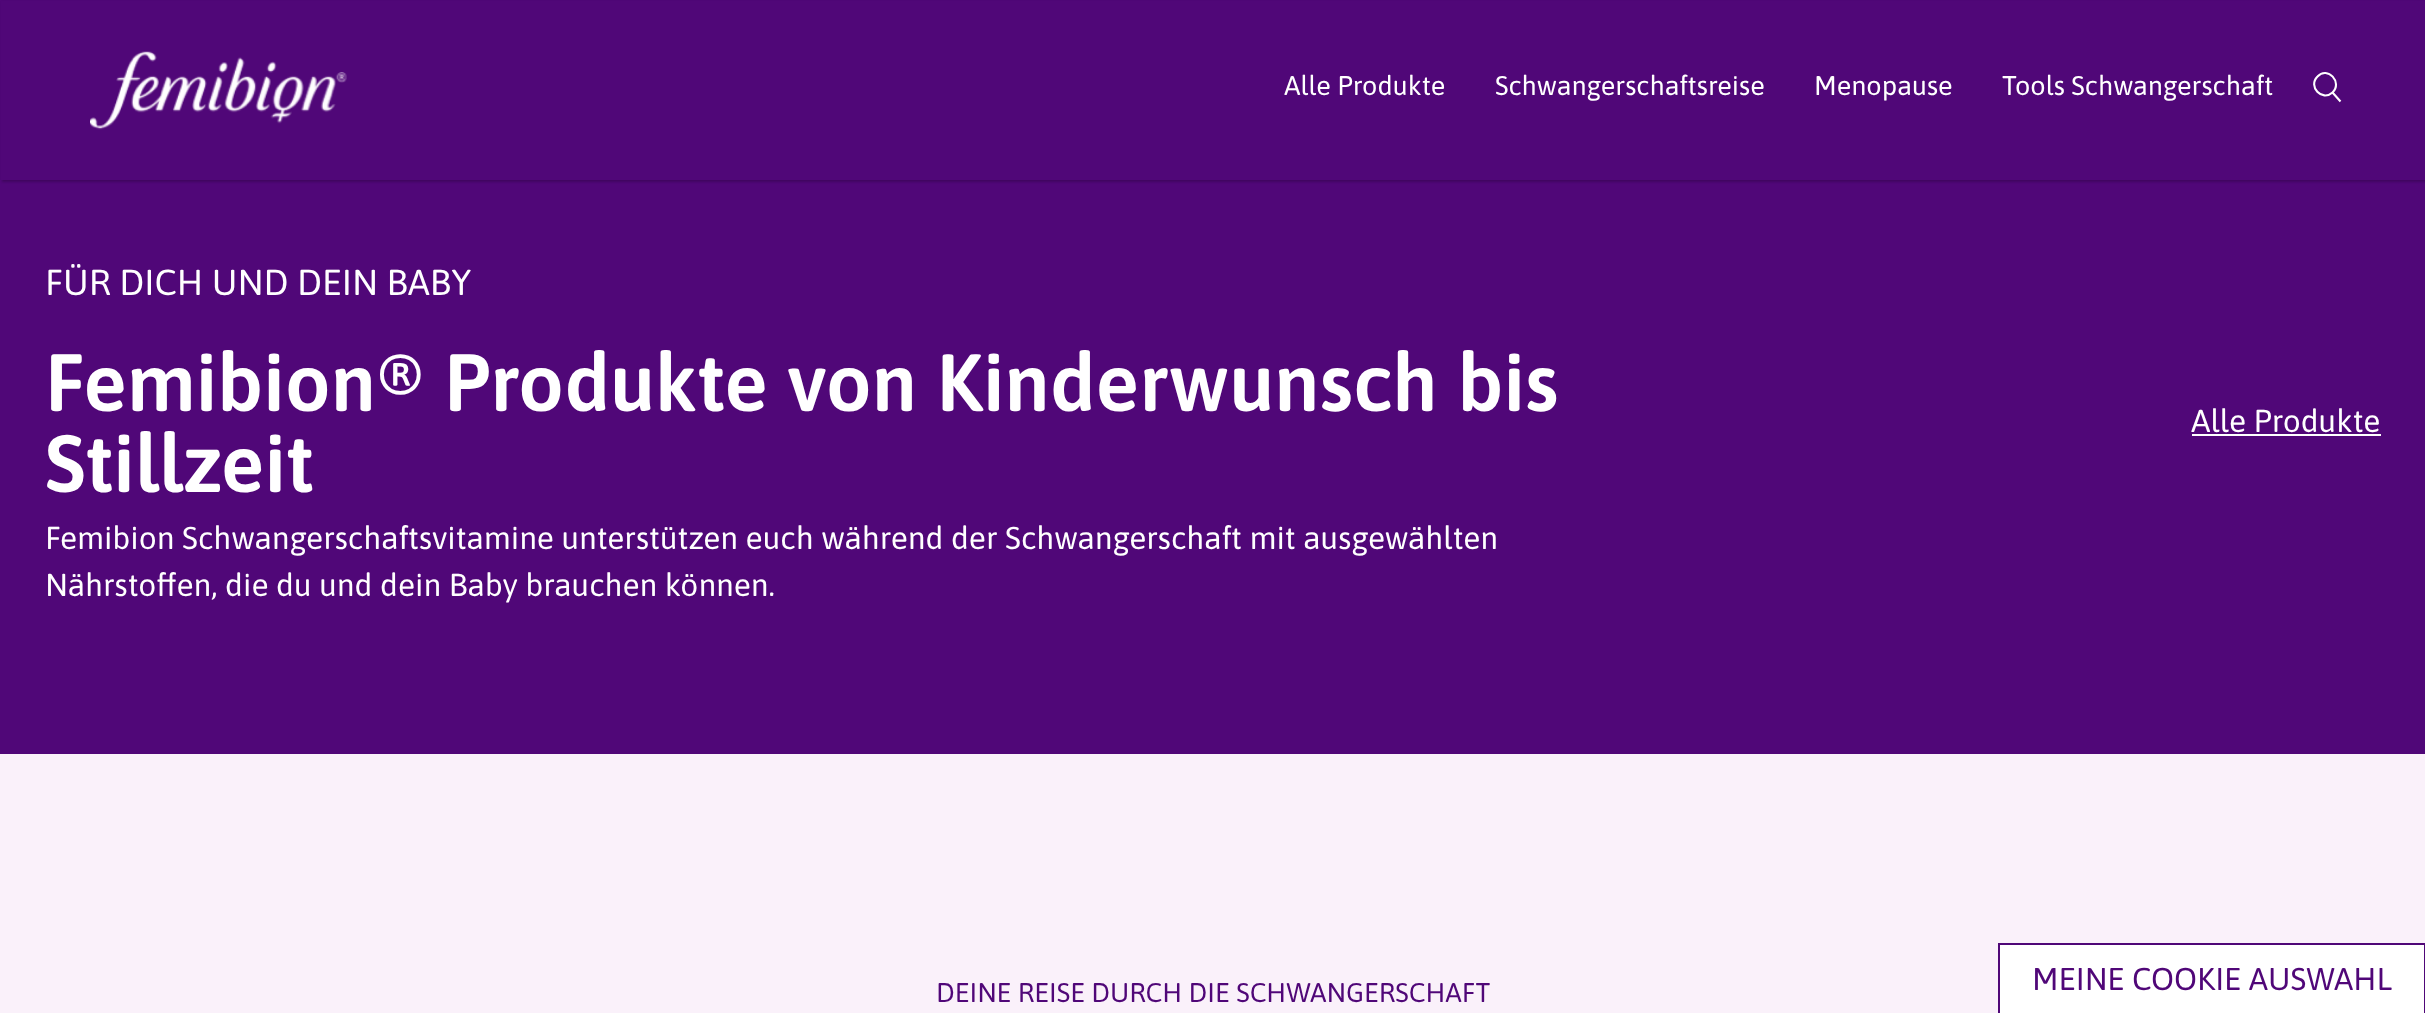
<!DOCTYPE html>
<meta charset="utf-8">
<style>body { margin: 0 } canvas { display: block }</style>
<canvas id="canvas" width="2425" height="1013"></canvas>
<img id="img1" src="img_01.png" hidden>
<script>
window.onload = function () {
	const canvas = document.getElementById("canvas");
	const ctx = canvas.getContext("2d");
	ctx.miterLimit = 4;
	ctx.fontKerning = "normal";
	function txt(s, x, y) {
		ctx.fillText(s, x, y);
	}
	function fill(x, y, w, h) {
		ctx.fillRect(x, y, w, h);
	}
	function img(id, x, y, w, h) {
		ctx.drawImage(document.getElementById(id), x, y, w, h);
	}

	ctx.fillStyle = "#500778";
	fill(0, 0, 2425, 1013);
	ctx.fillStyle = "rgba(0, 0, 0, 0.2)";
	ctx.filter = "blur(1px)";
	ctx.beginPath();
	ctx.rect(2, 2, 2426, 180);
	ctx.fill();
	ctx.filter = "none";
	ctx.fillStyle = "#500778";
	fill(1, 1, 2424, 179);
	img("img1", 90, 51, 257, 79);
	ctx.beginPath();
	ctx.moveTo(2332.5, 92.5);
	ctx.bezierCurveTo(2322, 102, 2307.5, 86.5, 2317.5, 76.5);
	ctx.bezierCurveTo(2327.5, 65.5, 2343, 82.5, 2332.5, 92.5);
	ctx.lineTo(2340.5, 101.5);
	ctx.closePath();
	ctx.strokeStyle = "#FFFFFF";
	ctx.lineWidth = 2.1;
	ctx.stroke();
	ctx.fillStyle = "#FFFFFF";
	fill(2192, 434, 189, 2);
	ctx.fillStyle = "#FAF1FA";
	fill(0, 754, 2425, 259);
	ctx.fillStyle = "#FFFFFF";
	ctx.beginPath();
	ctx.rect(1999, 944, 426, 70);
	ctx.fill();
	ctx.strokeStyle = "#500778";
	ctx.lineWidth = 2;
	ctx.stroke();
	ctx.font = "27px Asap";
	txt("Alle Produkte", 1284, 95);
	txt("Schwangerschaftsreise", 1495, 95);
	txt("Menopause", 1814, 95);
	txt("Tools Schwangerschaft", 2002, 95);
	ctx.font = "36px Asap";
	txt("FÜR DICH UND DEIN BABY", 45, 295);
	ctx.font = "600 81px Asap";
	txt("Femibion® Produkte von Kinderwunsch bis", 45, 411);
	txt("Stillzeit", 45, 492);
	ctx.font = "31.7px Asap";
	txt("Femibion Schwangerschaftsvitamine unterstützen euch während der Schwangerschaft mit ausgewählten", 45, 549);
	txt("Nährstoffen, die du und dein Baby brauchen können.", 45, 596);
	txt("Alle Produkte", 2191, 432);
	ctx.font = "27px Asap";
	ctx.fillStyle = "#500778";
	txt("DEINE REISE DURCH DIE SCHWANGERSCHAFT", 936, 1002);
	ctx.font = "31.5px Asap";
	txt("MEINE COOKIE AUSWAHL", 2032, 990);
};
</script>
